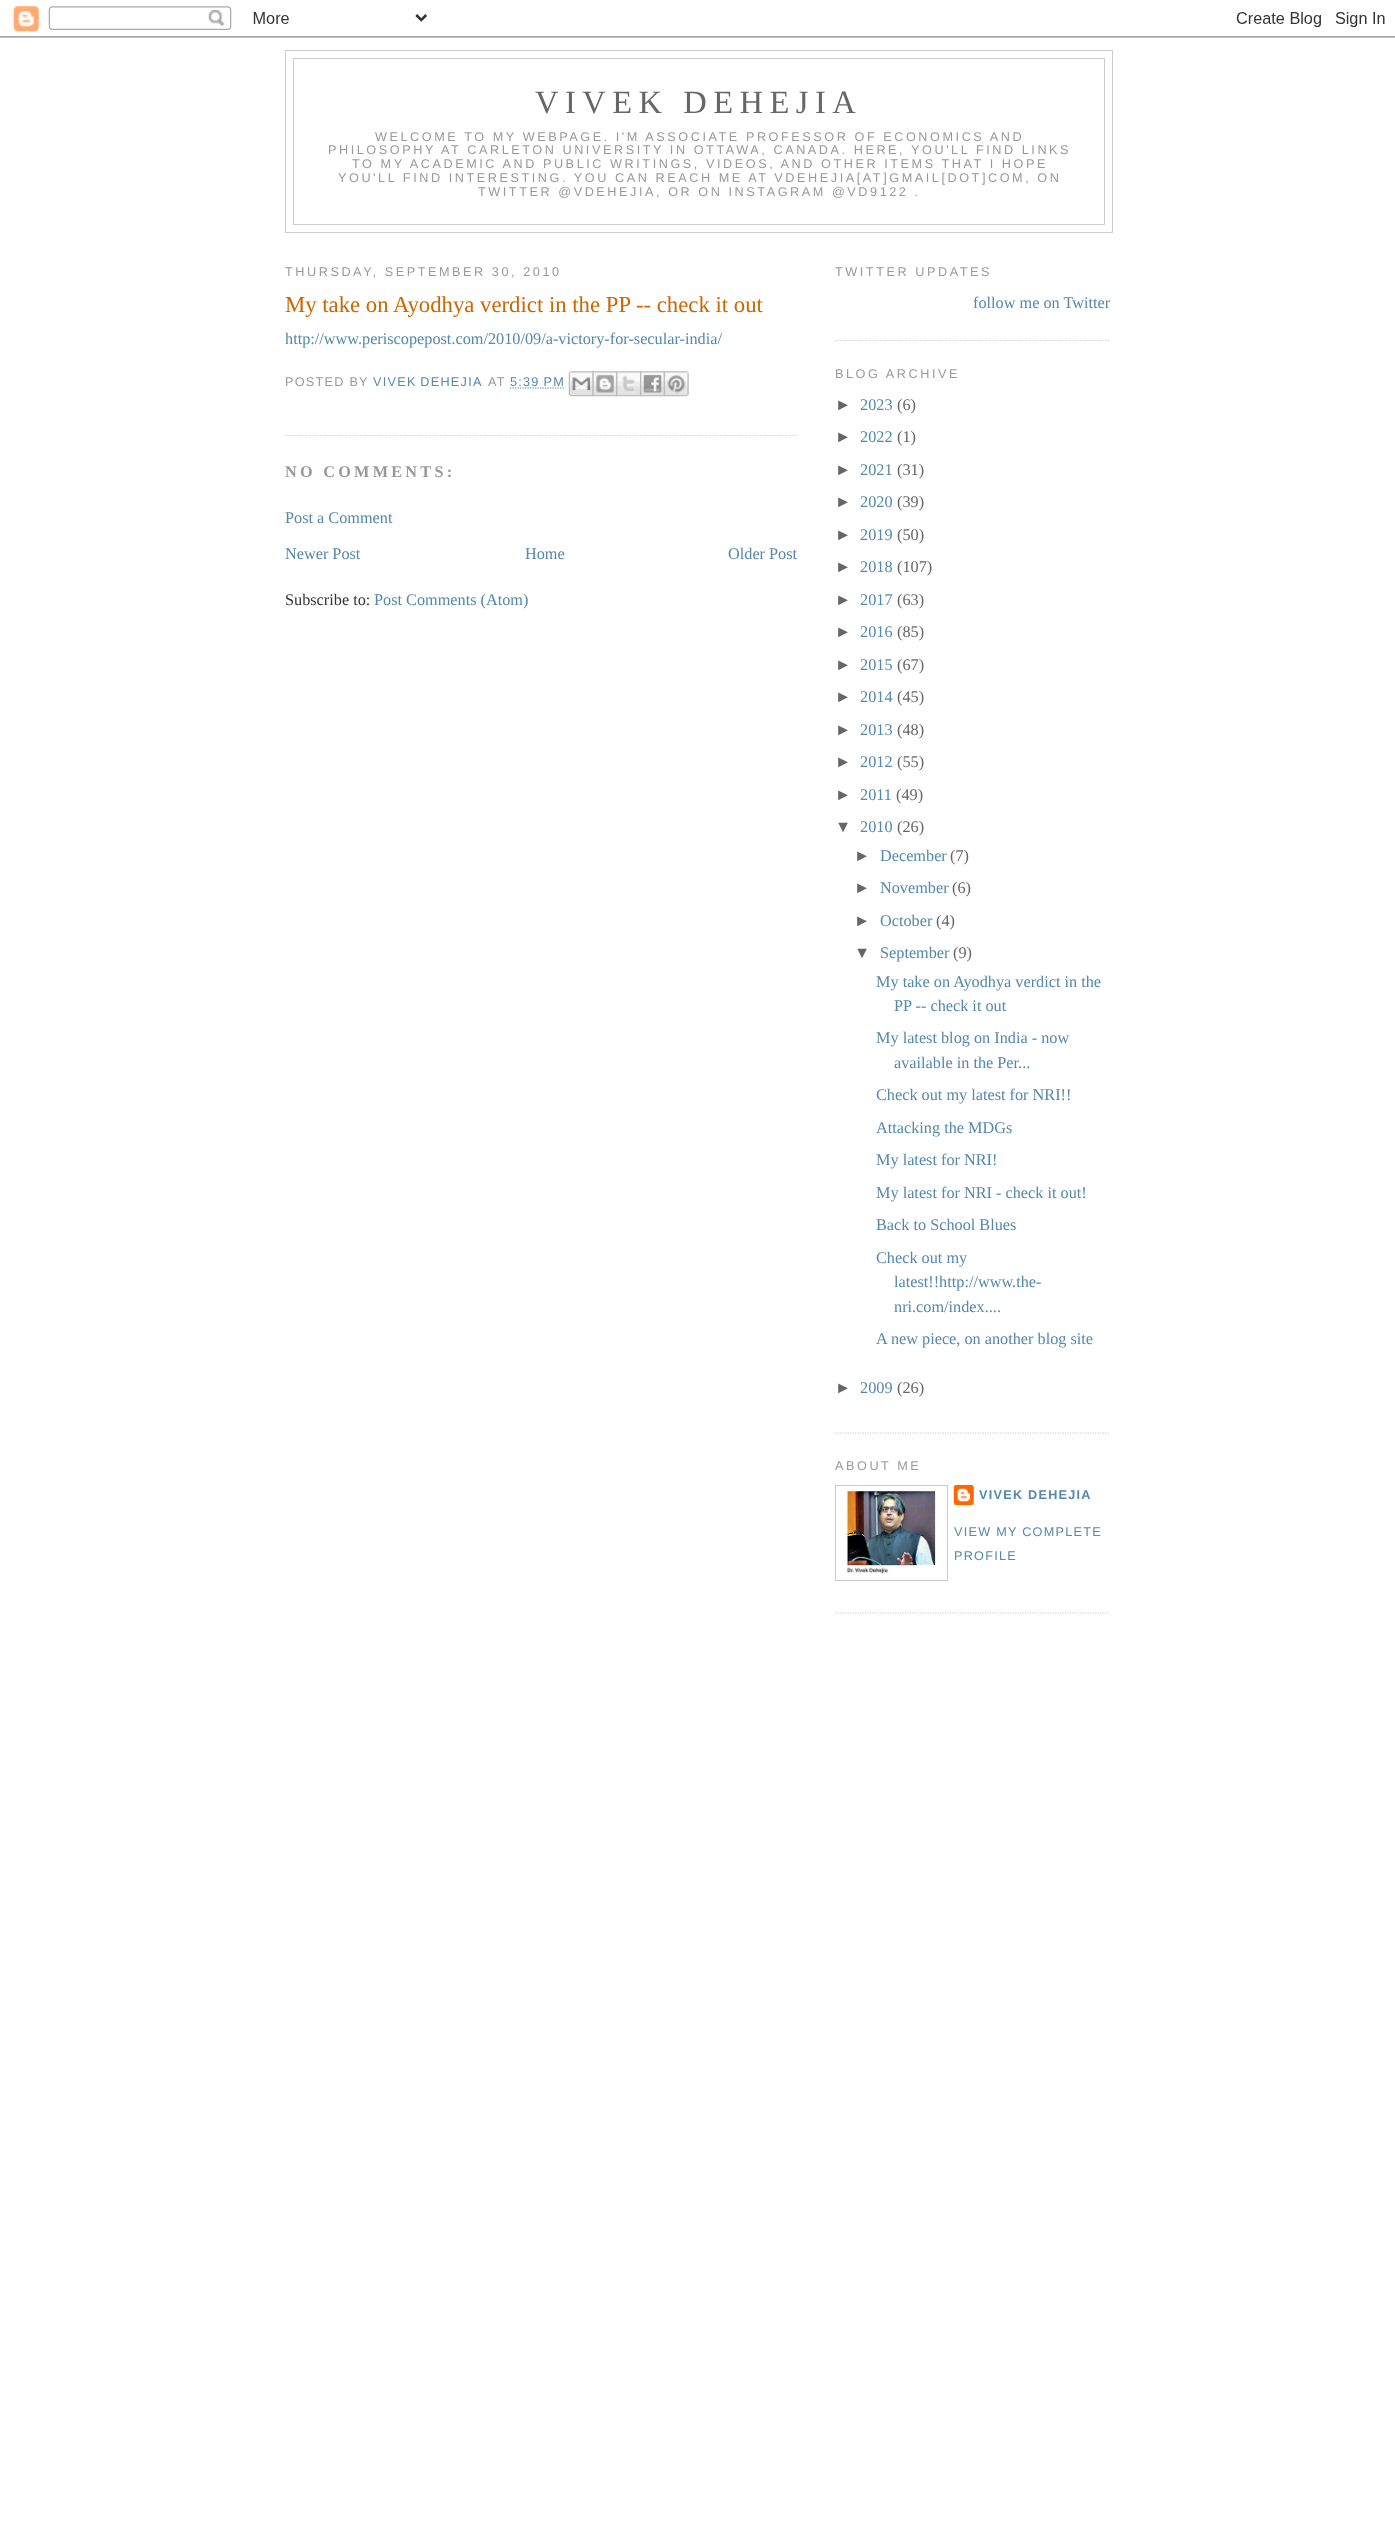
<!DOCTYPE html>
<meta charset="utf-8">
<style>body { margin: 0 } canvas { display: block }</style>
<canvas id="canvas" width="1395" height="2528"></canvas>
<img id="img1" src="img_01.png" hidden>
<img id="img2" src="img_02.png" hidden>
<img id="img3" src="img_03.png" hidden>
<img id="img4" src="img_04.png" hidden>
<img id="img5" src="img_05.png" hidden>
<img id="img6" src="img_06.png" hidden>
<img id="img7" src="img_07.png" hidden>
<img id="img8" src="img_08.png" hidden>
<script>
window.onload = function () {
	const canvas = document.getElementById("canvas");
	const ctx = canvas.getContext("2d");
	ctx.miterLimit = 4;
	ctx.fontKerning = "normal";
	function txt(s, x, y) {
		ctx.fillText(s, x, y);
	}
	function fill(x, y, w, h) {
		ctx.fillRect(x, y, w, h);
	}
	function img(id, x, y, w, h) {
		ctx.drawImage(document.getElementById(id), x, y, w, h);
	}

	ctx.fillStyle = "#FFFFFF";
	fill(0, 0, 1395, 2528);
	img("img1", 0, 6, 1395, 32);
	ctx.strokeStyle = "#CCCCCC";
	ctx.strokeRect(285.5, 50.5, 827, 182);
	ctx.strokeRect(293.5, 58.5, 811, 166);
	ctx.beginPath();
	ctx.moveTo(285, 435.5);
	ctx.lineTo(797.5, 435.5);
	ctx.lineWidth = 1.2;
	ctx.setLineDash([1.25, 1.25]);
	ctx.stroke();
	ctx.beginPath();
	ctx.moveTo(510, 388);
	ctx.lineTo(565, 388);
	ctx.strokeStyle = "#5588AA";
	ctx.stroke();
	img("img2", 568, 371, 26, 26);
	img("img3", 592, 371, 26, 26);
	img("img4", 616, 371, 26, 26);
	img("img5", 640, 371, 25, 26);
	img("img6", 663, 371, 26, 26);
	ctx.beginPath();
	ctx.moveTo(835, 340.5);
	ctx.lineTo(1110, 340.5);
	ctx.strokeStyle = "#CCCCCC";
	ctx.stroke();
	ctx.beginPath();
	ctx.moveTo(835, 1433);
	ctx.lineTo(1110, 1433);
	ctx.stroke();
	ctx.beginPath();
	ctx.moveTo(835, 1613);
	ctx.lineTo(1110, 1613);
	ctx.stroke();
	ctx.lineWidth = 1;
	ctx.setLineDash([]);
	ctx.strokeRect(835.5, 1485.5, 112, 95);
	img("img7", 845, 1491, 92, 83);
	img("img8", 953, 1485, 21, 20);
	ctx.letterSpacing = "6.5px";
	ctx.font = "32.5px Liberation Serif";
	ctx.fillStyle = "#666666";
	txt("VIVEK DEHEJIA", 535, 113);
	ctx.letterSpacing = "2.55px";
	ctx.font = "12.68px Liberation Sans";
	ctx.fillStyle = "#999999";
	txt("WELCOME TO MY WEBPAGE. I'M ASSOCIATE PROFESSOR OF ECONOMICS AND", 375, 141);
	txt("PHILOSOPHY AT CARLETON UNIVERSITY IN OTTAWA, CANADA. HERE, YOU'LL FIND LINKS", 328, 154);
	txt("TO MY ACADEMIC AND PUBLIC WRITINGS, VIDEOS, AND OTHER ITEMS THAT I HOPE", 352, 168);
	txt("YOU'LL FIND INTERESTING. YOU CAN REACH ME AT VDEHEJIA[AT]GMAIL[DOT]COM, ON", 338, 182);
	txt("TWITTER @VDEHEJIA, OR ON INSTAGRAM @VD9122 .", 478, 196);
	txt("THURSDAY, SEPTEMBER 30, 2010", 285, 276);
	ctx.letterSpacing = "0px";
	ctx.font = "22.75px Liberation Serif";
	ctx.fillStyle = "#CC6600";
	txt("My take on Ayodhya verdict in the PP -- check it out", 285, 312);
	ctx.font = "16.25px Liberation Serif";
	ctx.fillStyle = "#5588AA";
	txt("http://www.periscopepost.com/2010/09/a-victory-for-secular-india/", 285, 344);
	ctx.letterSpacing = "1.25px";
	ctx.font = "12.68px Liberation Sans";
	ctx.fillStyle = "#999999";
	txt("POSTED BY", 285, 386);
	ctx.wordSpacing = "-1px";
	ctx.fillStyle = "#5588AA";
	txt("VIVEK DEHEJIA", 373, 386);
	ctx.wordSpacing = "0px";
	ctx.fillStyle = "#999999";
	txt("AT", 488, 386);
	ctx.fillStyle = "#5588AA";
	txt("5:39 PM", 510, 386);
	ctx.letterSpacing = "3.25px";
	ctx.font = "bold 16.25px Liberation Serif";
	ctx.fillStyle = "#999999";
	txt("NO COMMENTS:", 285, 477);
	ctx.letterSpacing = "0px";
	ctx.font = "16.25px Liberation Serif";
	ctx.fillStyle = "#5588AA";
	txt("Post a Comment", 285, 523);
	txt("Newer Post", 285, 559);
	txt("Home", 525, 559);
	txt("Older Post", 728, 559);
	ctx.fillStyle = "#333333";
	txt("Subscribe to:", 285, 605);
	ctx.fillStyle = "#5588AA";
	txt("Post Comments (Atom)", 374, 605);
	ctx.letterSpacing = "2.55px";
	ctx.font = "12.68px Liberation Sans";
	ctx.fillStyle = "#999999";
	txt("TWITTER UPDATES", 835, 276);
	ctx.letterSpacing = "0px";
	ctx.font = "16.25px Liberation Serif";
	ctx.fillStyle = "#5588AA";
	txt("follow me on Twitter", 973, 308);
	ctx.letterSpacing = "2.55px";
	ctx.font = "12.68px Liberation Sans";
	ctx.fillStyle = "#999999";
	txt("BLOG ARCHIVE", 835, 378);
	ctx.letterSpacing = "0px";
	ctx.font = "16.25px Liberation Sans";
	ctx.fillStyle = "#666666";
	txt("►", 835, 410);
	ctx.font = "16.25px Liberation Serif";
	ctx.fillStyle = "#5588AA";
	txt("2023", 860, 410);
	ctx.fillStyle = "#666666";
	txt("(6)", 897, 410);
	ctx.font = "16.25px Liberation Sans";
	txt("►", 835, 442);
	ctx.font = "16.25px Liberation Serif";
	ctx.fillStyle = "#5588AA";
	txt("2022", 860, 442);
	ctx.fillStyle = "#666666";
	txt("(1)", 897, 442);
	ctx.font = "16.25px Liberation Sans";
	txt("►", 835, 475);
	ctx.font = "16.25px Liberation Serif";
	ctx.fillStyle = "#5588AA";
	txt("2021", 860, 475);
	ctx.fillStyle = "#666666";
	txt("(31)", 897, 475);
	ctx.font = "16.25px Liberation Sans";
	txt("►", 835, 507);
	ctx.font = "16.25px Liberation Serif";
	ctx.fillStyle = "#5588AA";
	txt("2020", 860, 507);
	ctx.fillStyle = "#666666";
	txt("(39)", 897, 507);
	ctx.font = "16.25px Liberation Sans";
	txt("►", 835, 540);
	ctx.font = "16.25px Liberation Serif";
	ctx.fillStyle = "#5588AA";
	txt("2019", 860, 540);
	ctx.fillStyle = "#666666";
	txt("(50)", 897, 540);
	ctx.font = "16.25px Liberation Sans";
	txt("►", 835, 572);
	ctx.font = "16.25px Liberation Serif";
	ctx.fillStyle = "#5588AA";
	txt("2018", 860, 572);
	ctx.fillStyle = "#666666";
	txt("(107)", 897, 572);
	ctx.font = "16.25px Liberation Sans";
	txt("►", 835, 605);
	ctx.font = "16.25px Liberation Serif";
	ctx.fillStyle = "#5588AA";
	txt("2017", 860, 605);
	ctx.fillStyle = "#666666";
	txt("(63)", 897, 605);
	ctx.font = "16.25px Liberation Sans";
	txt("►", 835, 637);
	ctx.font = "16.25px Liberation Serif";
	ctx.fillStyle = "#5588AA";
	txt("2016", 860, 637);
	ctx.fillStyle = "#666666";
	txt("(85)", 897, 637);
	ctx.font = "16.25px Liberation Sans";
	txt("►", 835, 670);
	ctx.font = "16.25px Liberation Serif";
	ctx.fillStyle = "#5588AA";
	txt("2015", 860, 670);
	ctx.fillStyle = "#666666";
	txt("(67)", 897, 670);
	ctx.font = "16.25px Liberation Sans";
	txt("►", 835, 702);
	ctx.font = "16.25px Liberation Serif";
	ctx.fillStyle = "#5588AA";
	txt("2014", 860, 702);
	ctx.fillStyle = "#666666";
	txt("(45)", 897, 702);
	ctx.font = "16.25px Liberation Sans";
	txt("►", 835, 735);
	ctx.font = "16.25px Liberation Serif";
	ctx.fillStyle = "#5588AA";
	txt("2013", 860, 735);
	ctx.fillStyle = "#666666";
	txt("(48)", 897, 735);
	ctx.font = "16.25px Liberation Sans";
	txt("►", 835, 767);
	ctx.font = "16.25px Liberation Serif";
	ctx.fillStyle = "#5588AA";
	txt("2012", 860, 767);
	ctx.fillStyle = "#666666";
	txt("(55)", 897, 767);
	ctx.font = "16.25px Liberation Sans";
	txt("►", 835, 800);
	ctx.font = "16.25px Liberation Serif";
	ctx.fillStyle = "#5588AA";
	txt("2011", 860, 800);
	ctx.fillStyle = "#666666";
	txt("(49)", 896, 800);
	ctx.font = "16.25px Liberation Sans";
	txt("▼", 835, 832);
	ctx.font = "16.25px Liberation Serif";
	ctx.fillStyle = "#5588AA";
	txt("2010", 860, 832);
	ctx.fillStyle = "#666666";
	txt("(26)", 897, 832);
	ctx.font = "16.25px Liberation Sans";
	txt("►", 854, 861);
	ctx.font = "16.25px Liberation Serif";
	ctx.fillStyle = "#5588AA";
	txt("December", 880, 861);
	ctx.fillStyle = "#666666";
	txt("(7)", 950, 861);
	ctx.font = "16.25px Liberation Sans";
	txt("►", 854, 893);
	ctx.font = "16.25px Liberation Serif";
	ctx.fillStyle = "#5588AA";
	txt("November", 880, 893);
	ctx.fillStyle = "#666666";
	txt("(6)", 952, 893);
	ctx.font = "16.25px Liberation Sans";
	txt("►", 854, 926);
	ctx.font = "16.25px Liberation Serif";
	ctx.fillStyle = "#5588AA";
	txt("October", 880, 926);
	ctx.fillStyle = "#666666";
	txt("(4)", 936, 926);
	ctx.font = "16.25px Liberation Sans";
	txt("▼", 854, 958);
	ctx.font = "16.25px Liberation Serif";
	ctx.fillStyle = "#5588AA";
	txt("September", 880, 958);
	ctx.fillStyle = "#666666";
	txt("(9)", 953, 958);
	ctx.fillStyle = "#5588AA";
	txt("My take on Ayodhya verdict in the", 876, 987);
	txt("PP -- check it out", 894, 1011);
	txt("My latest blog on India - now", 876, 1043);
	txt("available in the Per...", 894, 1068);
	txt("Check out my latest for NRI!!", 876, 1100);
	txt("Attacking the MDGs", 876, 1133);
	txt("My latest for NRI!", 876, 1165);
	txt("My latest for NRI - check it out!", 876, 1198);
	txt("Back to School Blues", 876, 1230);
	txt("Check out my", 876, 1263);
	txt("latest!!http://www.the-", 894, 1287);
	txt("nri.com/index....", 894, 1312);
	txt("A new piece, on another blog site", 876, 1344);
	ctx.font = "16.25px Liberation Sans";
	ctx.fillStyle = "#666666";
	txt("►", 835, 1393);
	ctx.font = "16.25px Liberation Serif";
	ctx.fillStyle = "#5588AA";
	txt("2009", 860, 1393);
	ctx.fillStyle = "#666666";
	txt("(26)", 897, 1393);
	ctx.letterSpacing = "2.55px";
	ctx.font = "12.68px Liberation Sans";
	ctx.fillStyle = "#999999";
	txt("ABOUT ME", 835, 1470);
	ctx.letterSpacing = "1.25px";
	ctx.font = "bold 12.68px Liberation Sans";
	ctx.fillStyle = "#5588AA";
	txt("VIVEK DEHEJIA", 979, 1499);
	ctx.font = "12.68px Liberation Sans";
	txt("VIEW MY COMPLETE", 954, 1536);
	txt("PROFILE", 954, 1560);
};
</script>
